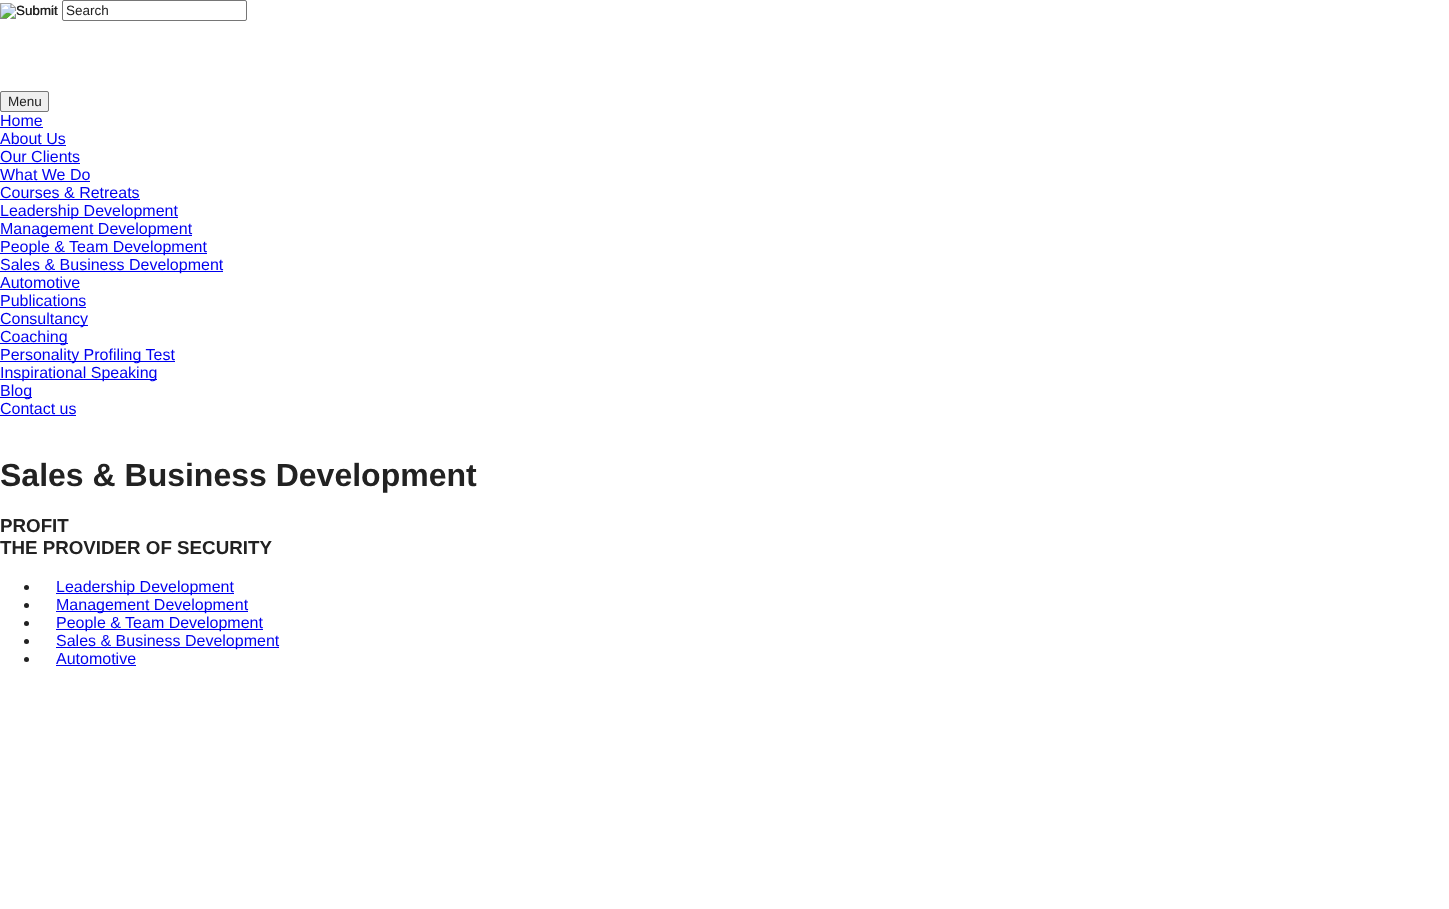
<!DOCTYPE html>
<meta charset="utf-8">
<style>body { margin: 0 } canvas { display: block }</style>
<canvas id="canvas" width="1449" height="909"></canvas>
<img id="img1" src="img_01.png" hidden>
<script>
window.onload = function () {
	const canvas = document.getElementById("canvas");
	const ctx = canvas.getContext("2d");
	ctx.miterLimit = 4;
	ctx.fontKerning = "normal";
	function txt(s, x, y) {
		ctx.fillText(s, x, y);
	}
	function fill(x, y, w, h) {
		ctx.fillRect(x, y, w, h);
	}
	function img(id, x, y, w, h) {
		ctx.drawImage(document.getElementById(id), x, y, w, h);
	}

	ctx.fillStyle = "#FFFFFF";
	fill(0, 0, 1449, 909);
	img("img1", 0, 3, 57, 16);
	ctx.beginPath();
	ctx.roundRect(62.5, 0.5, 184, 20, 1.5);
	ctx.strokeStyle = "#767676";
	ctx.stroke();
	ctx.fillStyle = "#EFEFEF";
	ctx.beginPath();
	ctx.roundRect(0.5, 91.5, 48, 20, 1.5);
	ctx.fill();
	ctx.stroke();
	ctx.fillStyle = "#0000EE";
	fill(0, 127, 43, 1);
	fill(0, 145, 66, 1);
	fill(0, 163, 80, 1);
	fill(0, 181, 90, 1);
	fill(0, 199, 140, 1);
	fill(0, 217, 178, 1);
	fill(0, 235, 192, 1);
	fill(0, 253, 207, 1);
	fill(0, 271, 223, 1);
	fill(0, 289, 80, 1);
	fill(0, 307, 86, 1);
	fill(0, 325, 88, 1);
	fill(0, 343, 68, 1);
	fill(0, 361, 175, 1);
	fill(0, 379, 157, 1);
	fill(0, 397, 32, 1);
	fill(0, 415, 76, 1);
	ctx.fillStyle = "#222222";
	ctx.beginPath();
	ctx.arc(26.5, 587.5, 2.5, 0, Math.PI * 2);
	ctx.fill();
	ctx.fillStyle = "#0000EE";
	fill(56, 593, 178, 1);
	ctx.fillStyle = "#222222";
	ctx.beginPath();
	ctx.arc(26.5, 605.5, 2.5, 0, Math.PI * 2);
	ctx.fill();
	ctx.fillStyle = "#0000EE";
	fill(56, 611, 192, 1);
	ctx.fillStyle = "#222222";
	ctx.beginPath();
	ctx.arc(26.5, 623.5, 2.5, 0, Math.PI * 2);
	ctx.fill();
	ctx.fillStyle = "#0000EE";
	fill(56, 629, 207, 1);
	ctx.fillStyle = "#222222";
	ctx.beginPath();
	ctx.arc(26.5, 641.5, 2.5, 0, Math.PI * 2);
	ctx.fill();
	ctx.fillStyle = "#0000EE";
	fill(56, 647, 223, 1);
	ctx.fillStyle = "#222222";
	ctx.beginPath();
	ctx.arc(26.5, 659.5, 2.5, 0, Math.PI * 2);
	ctx.fill();
	ctx.fillStyle = "#0000EE";
	fill(56, 665, 80, 1);
	ctx.font = "13.5px Liberation Sans";
	ctx.fillStyle = "#222222";
	txt("Submit", 16, 15);
	txt("Search", 66, 15);
	txt("Menu", 8, 106);
	ctx.font = "16px Liberation Sans";
	ctx.fillStyle = "#0000EE";
	txt("Home", 0, 126);
	txt("About Us", 0, 144);
	txt("Our Clients", 0, 162);
	txt("What We Do", 0, 180);
	txt("Courses & Retreats", 0, 198);
	txt("Leadership Development", 0, 216);
	txt("Management Development", 0, 234);
	txt("People & Team Development", 0, 252);
	txt("Sales & Business Development", 0, 270);
	txt("Automotive", 0, 288);
	txt("Publications", 0, 306);
	txt("Consultancy", 0, 324);
	txt("Coaching", 0, 342);
	txt("Personality Profiling Test", 0, 360);
	txt("Inspirational Speaking", 0, 378);
	txt("Blog", 0, 396);
	txt("Contact us", 0, 414);
	ctx.font = "bold 32px Liberation Sans";
	ctx.fillStyle = "#222222";
	txt("Sales & Business Development", 0, 486);
	ctx.font = "bold 18.75px Liberation Sans";
	txt("PROFIT", 0, 532);
	txt("THE PROVIDER OF SECURITY", 0, 554);
	ctx.font = "16px Liberation Sans";
	ctx.fillStyle = "#0000EE";
	txt("Leadership Development", 56, 592);
	txt("Management Development", 56, 610);
	txt("People & Team Development", 56, 628);
	txt("Sales & Business Development", 56, 646);
	txt("Automotive", 56, 664);
};
</script>
